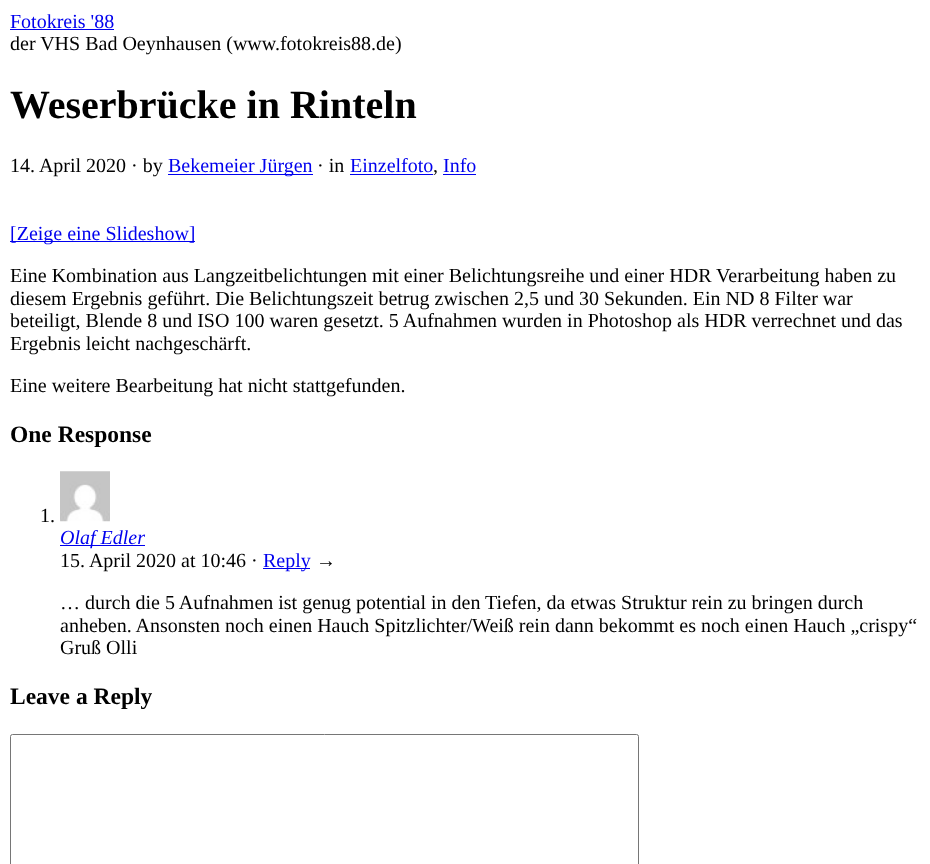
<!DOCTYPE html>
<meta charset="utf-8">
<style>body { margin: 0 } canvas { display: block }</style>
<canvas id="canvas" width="930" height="864"></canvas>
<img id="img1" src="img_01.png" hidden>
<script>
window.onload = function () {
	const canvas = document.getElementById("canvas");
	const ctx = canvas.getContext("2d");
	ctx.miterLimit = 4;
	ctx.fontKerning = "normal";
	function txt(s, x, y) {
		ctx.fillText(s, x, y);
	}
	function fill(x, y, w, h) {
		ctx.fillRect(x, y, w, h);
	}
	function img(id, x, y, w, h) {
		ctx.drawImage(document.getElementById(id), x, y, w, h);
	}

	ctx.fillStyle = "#FFFFFF";
	fill(0, 0, 930, 864);
	ctx.fillStyle = "#0000EE";
	fill(10, 29, 104, 1);
	fill(168, 174, 145, 1);
	fill(350, 174, 83, 1);
	fill(443, 174, 33, 1);
	fill(10, 241, 185, 1);
	img("img1", 60, 471, 50, 51);
	fill(60, 545, 85, 1);
	fill(263, 568, 47, 1);
	ctx.beginPath();
	ctx.roundRect(10.5, 734.5, 628, 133, 2);
	ctx.strokeStyle = "#767676";
	ctx.stroke();
	ctx.font = "20px Liberation Serif";
	txt("Fotokreis '88", 10, 28);
	ctx.fillStyle = "#000000";
	txt("der VHS Bad Oeynhausen (www.fotokreis88.de)", 10, 50);
	ctx.font = "bold 40px Liberation Serif";
	txt("Weserbrücke in Rinteln", 10, 118);
	ctx.font = "20px Liberation Serif";
	txt("14. April 2020 · by", 10, 172);
	ctx.fillStyle = "#0000EE";
	txt("Bekemeier Jürgen", 168, 172);
	ctx.fillStyle = "#000000";
	txt("· in", 317, 172);
	ctx.fillStyle = "#0000EE";
	txt("Einzelfoto", 350, 172);
	ctx.fillStyle = "#000000";
	txt(",", 433, 172);
	ctx.fillStyle = "#0000EE";
	txt("Info", 443, 172);
	txt("[Zeige eine Slideshow]", 10, 240);
	ctx.fillStyle = "#000000";
	txt("Eine Kombination aus Langzeitbelichtungen mit einer Belichtungsreihe und einer HDR Verarbeitung haben zu", 10, 282);
	txt("diesem Ergebnis geführt. Die Belichtungszeit betrug zwischen 2,5 und 30 Sekunden. Ein ND 8 Filter war", 10, 305);
	txt("beteiligt, Blende 8 und ISO 100 waren gesetzt. 5 Aufnahmen wurden in Photoshop als HDR verrechnet und das", 10, 327);
	txt("Ergebnis leicht nachgeschärft.", 10, 350);
	txt("Eine weitere Bearbeitung hat nicht stattgefunden.", 10, 392);
	ctx.font = "bold 23.5px Liberation Serif";
	txt("One Response", 10, 442);
	ctx.font = "20px Liberation Serif";
	txt("1.", 40, 522);
	ctx.font = "italic 20px Liberation Serif";
	ctx.fillStyle = "#0000EE";
	txt("Olaf Edler", 60, 544);
	ctx.font = "20px Liberation Serif";
	ctx.fillStyle = "#000000";
	txt("15. April 2020 at 10:46 ·", 60, 567);
	ctx.fillStyle = "#0000EE";
	txt("Reply", 263, 567);
	ctx.fillStyle = "#000000";
	txt("→", 316, 567);
	txt("… durch die 5 Aufnahmen ist genug potential in den Tiefen, da etwas Struktur rein zu bringen durch", 60, 609);
	txt("anheben. Ansonsten noch einen Hauch Spitzlichter/Weiß rein dann bekommt es noch einen Hauch „crispy“", 60, 632);
	txt("Gruß Olli", 60, 654);
	ctx.font = "bold 23.5px Liberation Serif";
	txt("Leave a Reply", 10, 704);
};
</script>
